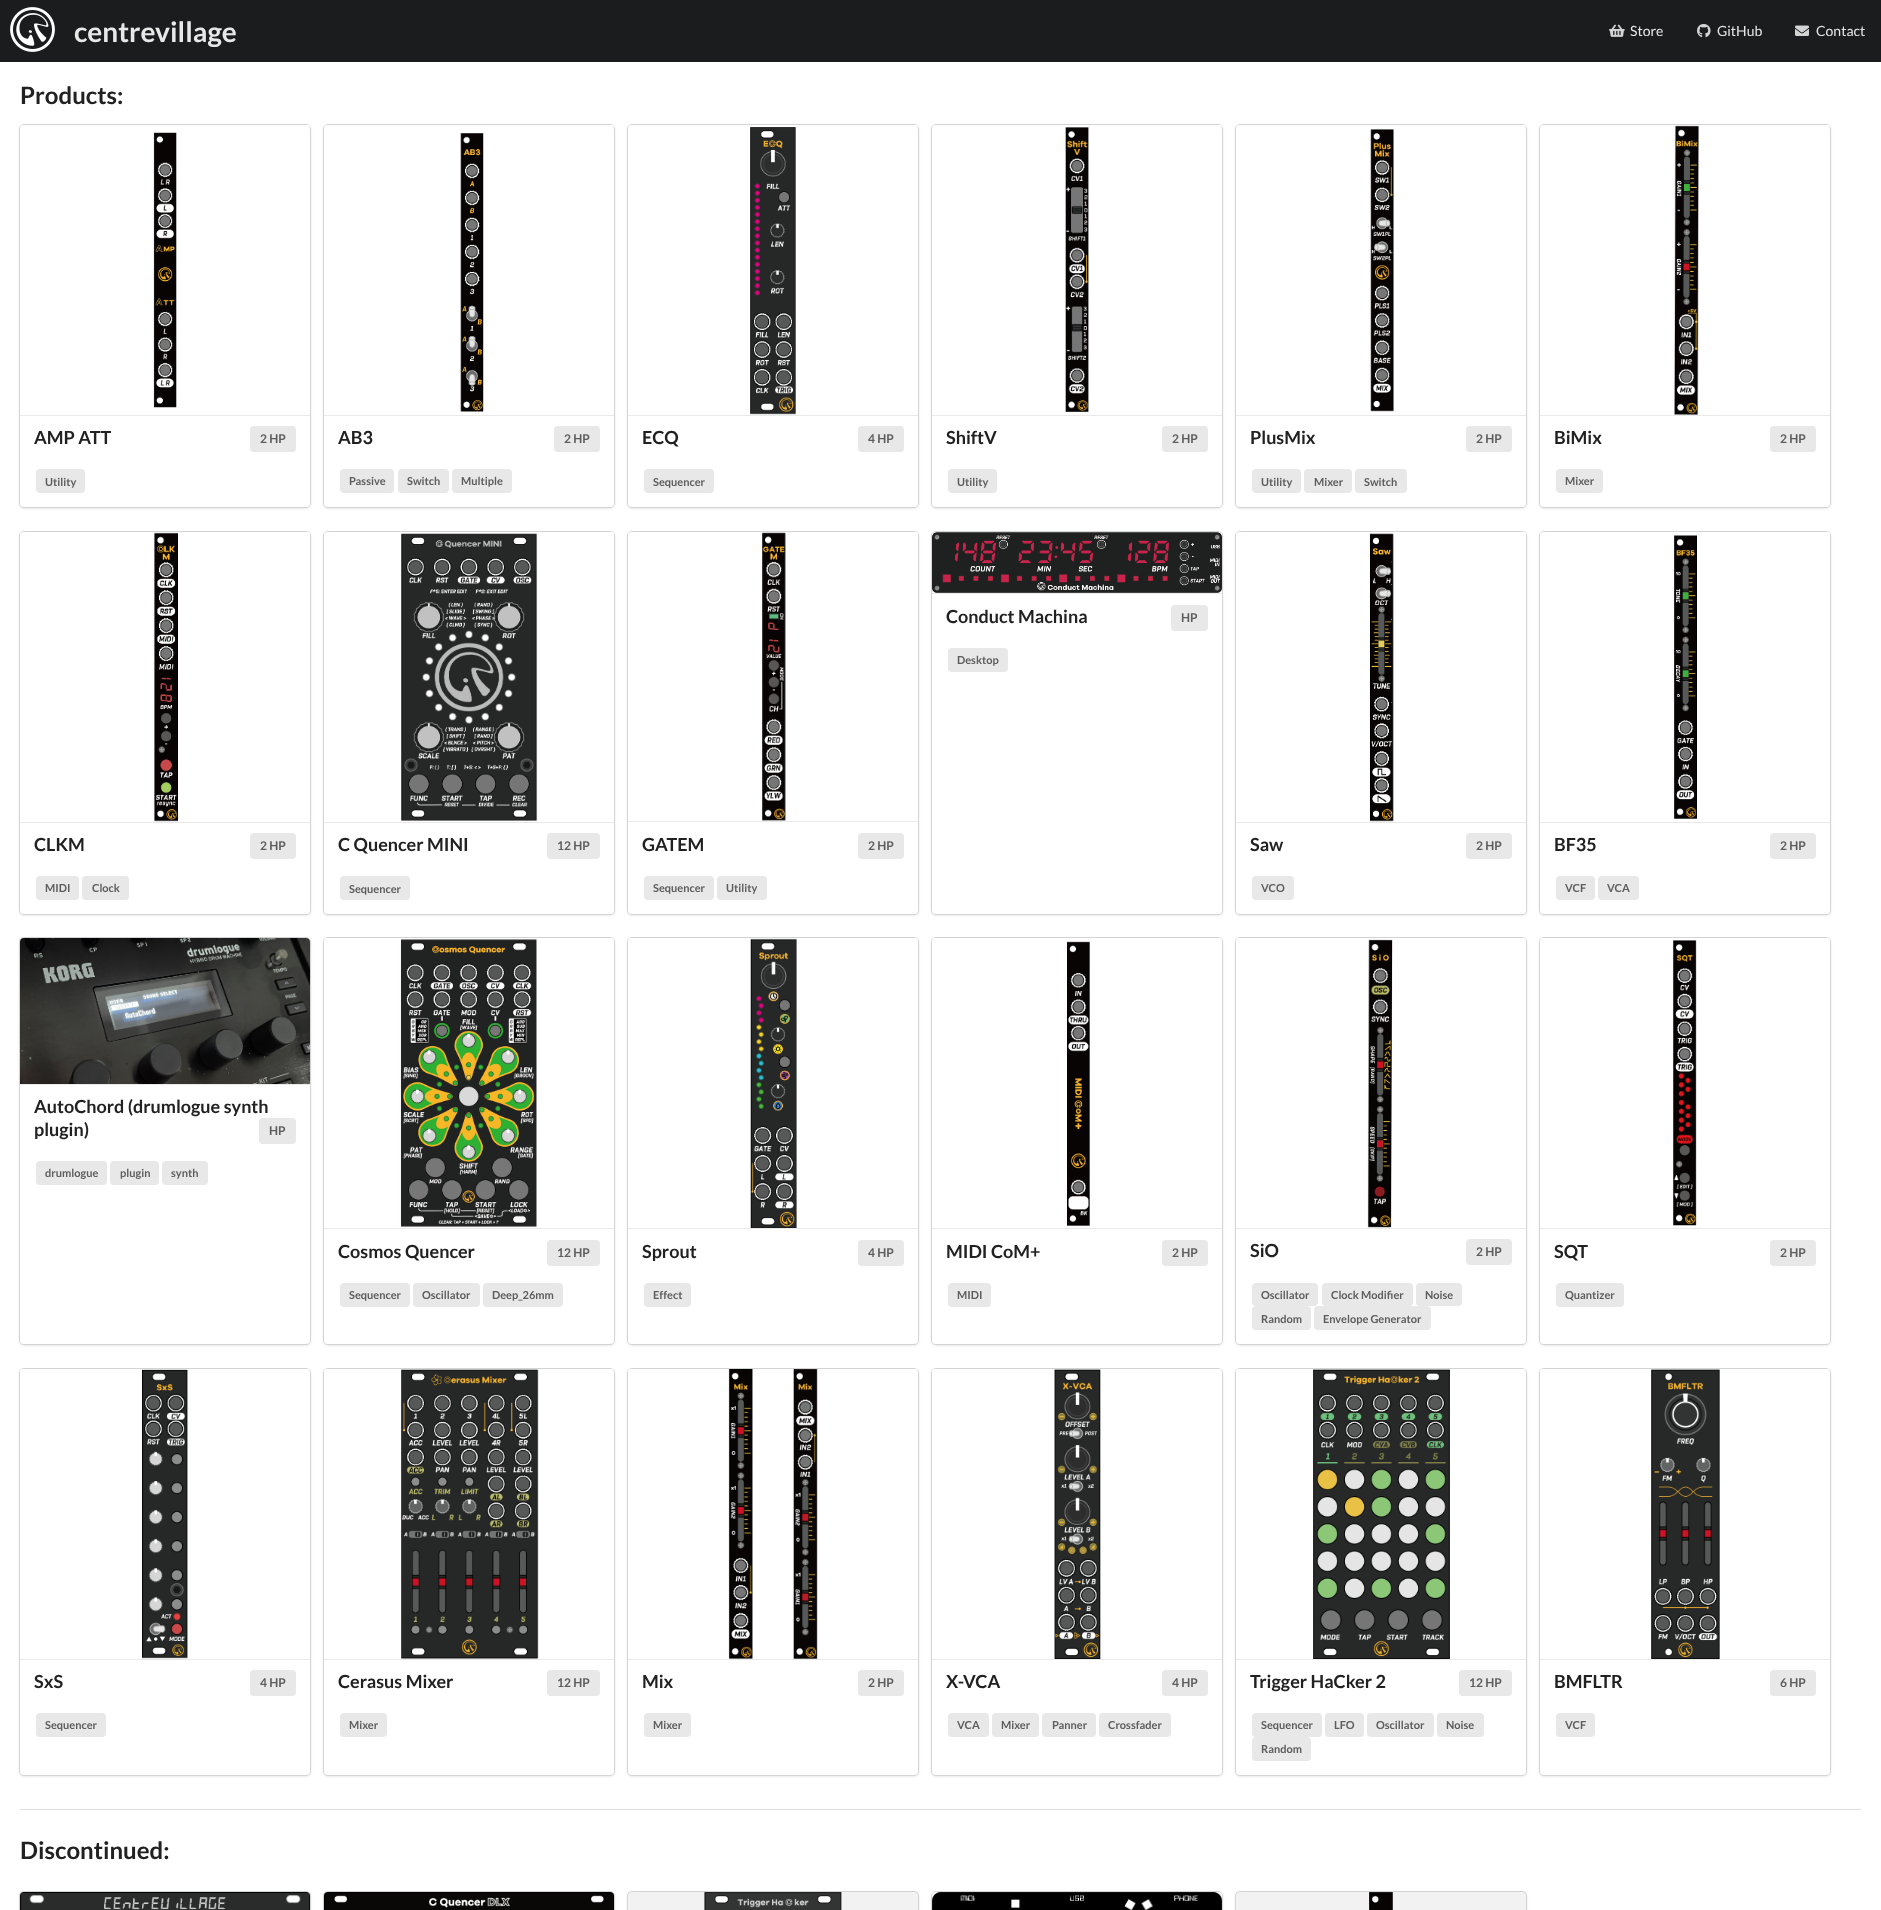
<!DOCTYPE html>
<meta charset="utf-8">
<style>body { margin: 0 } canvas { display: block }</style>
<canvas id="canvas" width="1881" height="1910"></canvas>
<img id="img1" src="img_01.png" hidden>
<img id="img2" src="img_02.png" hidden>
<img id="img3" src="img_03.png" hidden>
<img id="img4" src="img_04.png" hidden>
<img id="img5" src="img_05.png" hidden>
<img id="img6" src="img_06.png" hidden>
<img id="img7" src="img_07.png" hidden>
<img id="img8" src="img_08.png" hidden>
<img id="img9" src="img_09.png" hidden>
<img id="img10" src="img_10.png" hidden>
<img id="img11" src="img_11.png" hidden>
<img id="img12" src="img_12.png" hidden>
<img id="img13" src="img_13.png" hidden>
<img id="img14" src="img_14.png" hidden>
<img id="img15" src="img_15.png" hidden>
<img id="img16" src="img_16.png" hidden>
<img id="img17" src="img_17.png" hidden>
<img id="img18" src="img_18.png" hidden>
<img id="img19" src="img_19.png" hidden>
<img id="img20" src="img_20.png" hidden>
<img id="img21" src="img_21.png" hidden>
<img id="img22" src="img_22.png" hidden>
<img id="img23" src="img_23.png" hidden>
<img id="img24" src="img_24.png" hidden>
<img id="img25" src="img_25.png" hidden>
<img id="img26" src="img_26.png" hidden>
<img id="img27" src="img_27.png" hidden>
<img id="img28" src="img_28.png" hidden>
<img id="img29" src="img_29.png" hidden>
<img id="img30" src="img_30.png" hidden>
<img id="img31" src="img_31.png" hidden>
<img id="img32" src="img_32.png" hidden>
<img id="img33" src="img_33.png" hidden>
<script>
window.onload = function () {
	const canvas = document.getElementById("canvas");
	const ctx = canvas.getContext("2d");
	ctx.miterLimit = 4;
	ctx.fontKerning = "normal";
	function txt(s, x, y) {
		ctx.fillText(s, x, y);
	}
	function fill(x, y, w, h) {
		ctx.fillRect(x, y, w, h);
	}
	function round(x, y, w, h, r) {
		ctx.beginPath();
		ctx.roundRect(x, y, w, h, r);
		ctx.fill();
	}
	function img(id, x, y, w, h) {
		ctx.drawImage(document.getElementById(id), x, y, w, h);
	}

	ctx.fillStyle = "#FFFFFF";
	fill(0, 0, 1881, 1910);
	ctx.fillStyle = "#1B1C1D";
	fill(0, 0, 1881, 62);
	img("img1", 10, 7, 45, 45);
	img("img2", 1609, 24, 16, 13);
	img("img3", 1697, 24, 14, 14);
	img("img4", 1795, 25, 14, 11);
	ctx.beginPath();
	ctx.roundRect(19.5, 124.5, 291, 383, 4.5);
	ctx.strokeStyle = "#D4D4D5";
	ctx.stroke();
	ctx.fillStyle = "#D4D4D5";
	ctx.filter = "blur(1.5px)";
	ctx.beginPath();
	ctx.roundRect(20, 126, 290, 382, 4);
	ctx.fill();
	ctx.filter = "none";
	ctx.fillStyle = "#FFFFFF";
	round(20, 125, 290, 382, 4);
	img("img5", 20, 125, 290, 290);
	ctx.fillStyle = "#E9E9E9";
	fill(20, 415, 290, 1);
	ctx.fillStyle = "#E8E8E8";
	round(250, 426, 46, 26, 4);
	round(36, 469, 49, 24, 4);
	ctx.beginPath();
	ctx.roundRect(323.5, 124.5, 291, 383, 4.5);
	ctx.stroke();
	ctx.fillStyle = "#D4D4D5";
	ctx.filter = "blur(1.5px)";
	ctx.beginPath();
	ctx.roundRect(324, 126, 290, 382, 4);
	ctx.fill();
	ctx.filter = "none";
	ctx.fillStyle = "#FFFFFF";
	round(324, 125, 290, 382, 4);
	img("img6", 324, 125, 290, 290);
	ctx.fillStyle = "#E9E9E9";
	fill(324, 415, 290, 1);
	ctx.fillStyle = "#E8E8E8";
	round(554, 426, 46, 26, 4);
	round(340, 469, 54, 24, 4);
	round(398, 469, 51, 24, 4);
	round(452, 469, 60, 24, 4);
	ctx.beginPath();
	ctx.roundRect(627.5, 124.5, 291, 383, 4.5);
	ctx.stroke();
	ctx.fillStyle = "#D4D4D5";
	ctx.filter = "blur(1.5px)";
	ctx.beginPath();
	ctx.roundRect(628, 126, 290, 382, 4);
	ctx.fill();
	ctx.filter = "none";
	ctx.fillStyle = "#FFFFFF";
	round(628, 125, 290, 382, 4);
	img("img7", 628, 125, 290, 290);
	ctx.fillStyle = "#E9E9E9";
	fill(628, 415, 290, 1);
	ctx.fillStyle = "#E8E8E8";
	round(858, 426, 46, 26, 4);
	round(644, 469, 70, 24, 4);
	ctx.beginPath();
	ctx.roundRect(931.5, 124.5, 291, 383, 4.5);
	ctx.stroke();
	ctx.fillStyle = "#D4D4D5";
	ctx.filter = "blur(1.5px)";
	ctx.beginPath();
	ctx.roundRect(932, 126, 290, 382, 4);
	ctx.fill();
	ctx.filter = "none";
	ctx.fillStyle = "#FFFFFF";
	round(932, 125, 290, 382, 4);
	img("img8", 932, 125, 290, 290);
	ctx.fillStyle = "#E9E9E9";
	fill(932, 415, 290, 1);
	ctx.fillStyle = "#E8E8E8";
	round(1162, 426, 46, 26, 4);
	round(948, 469, 49, 24, 4);
	ctx.beginPath();
	ctx.roundRect(1235.5, 124.5, 291, 383, 4.5);
	ctx.stroke();
	ctx.fillStyle = "#D4D4D5";
	ctx.filter = "blur(1.5px)";
	ctx.beginPath();
	ctx.roundRect(1236, 126, 290, 382, 4);
	ctx.fill();
	ctx.filter = "none";
	ctx.fillStyle = "#FFFFFF";
	round(1236, 125, 290, 382, 4);
	img("img9", 1236, 125, 290, 290);
	ctx.fillStyle = "#E9E9E9";
	fill(1236, 415, 290, 1);
	ctx.fillStyle = "#E8E8E8";
	round(1466, 426, 46, 26, 4);
	round(1252, 469, 49, 24, 4);
	round(1304, 469, 48, 24, 4);
	round(1355, 469, 52, 24, 4);
	ctx.beginPath();
	ctx.roundRect(1539.5, 124.5, 291, 383, 4.5);
	ctx.stroke();
	ctx.fillStyle = "#D4D4D5";
	ctx.filter = "blur(1.5px)";
	ctx.beginPath();
	ctx.roundRect(1540, 126, 290, 382, 4);
	ctx.fill();
	ctx.filter = "none";
	ctx.fillStyle = "#FFFFFF";
	round(1540, 125, 290, 382, 4);
	img("img10", 1540, 125, 290, 290);
	ctx.fillStyle = "#E9E9E9";
	fill(1540, 415, 290, 1);
	ctx.fillStyle = "#E8E8E8";
	round(1770, 426, 46, 26, 4);
	round(1556, 469, 47, 24, 4);
	ctx.beginPath();
	ctx.roundRect(931.5, 531.5, 291, 383, 4.5);
	ctx.stroke();
	ctx.fillStyle = "#D4D4D5";
	ctx.filter = "blur(1.5px)";
	ctx.beginPath();
	ctx.roundRect(932, 533, 290, 382, 4);
	ctx.fill();
	ctx.filter = "none";
	ctx.fillStyle = "#FFFFFF";
	round(932, 532, 290, 382, 4);
	img("img11", 932, 532, 290, 61);
	ctx.fillStyle = "#E9E9E9";
	fill(932, 593, 290, 1);
	ctx.fillStyle = "#E8E8E8";
	round(1171, 605, 37, 26, 4);
	round(948, 648, 60, 24, 4);
	ctx.beginPath();
	ctx.roundRect(19.5, 531.5, 291, 383, 4.5);
	ctx.stroke();
	ctx.fillStyle = "#D4D4D5";
	ctx.filter = "blur(1.5px)";
	ctx.beginPath();
	ctx.roundRect(20, 533, 290, 382, 4);
	ctx.fill();
	ctx.filter = "none";
	ctx.fillStyle = "#FFFFFF";
	round(20, 532, 290, 382, 4);
	img("img12", 20, 532, 290, 290);
	ctx.fillStyle = "#E9E9E9";
	fill(20, 822, 290, 1);
	ctx.fillStyle = "#E8E8E8";
	round(250, 833, 46, 26, 4);
	round(36, 876, 43, 24, 4);
	round(82, 876, 47, 24, 4);
	ctx.beginPath();
	ctx.roundRect(323.5, 531.5, 291, 383, 4.5);
	ctx.stroke();
	ctx.fillStyle = "#D4D4D5";
	ctx.filter = "blur(1.5px)";
	ctx.beginPath();
	ctx.roundRect(324, 533, 290, 382, 4);
	ctx.fill();
	ctx.filter = "none";
	ctx.fillStyle = "#FFFFFF";
	round(324, 532, 290, 382, 4);
	img("img13", 324, 532, 290, 290);
	ctx.fillStyle = "#E9E9E9";
	fill(324, 822, 290, 1);
	ctx.fillStyle = "#E8E8E8";
	round(547, 833, 53, 26, 4);
	round(340, 876, 70, 24, 4);
	ctx.beginPath();
	ctx.roundRect(627.5, 531.5, 291, 383, 4.5);
	ctx.stroke();
	ctx.fillStyle = "#D4D4D5";
	ctx.filter = "blur(1.5px)";
	ctx.beginPath();
	ctx.roundRect(628, 533, 290, 382, 4);
	ctx.fill();
	ctx.filter = "none";
	ctx.fillStyle = "#FFFFFF";
	round(628, 532, 290, 382, 4);
	img("img14", 628, 532, 290, 289);
	ctx.fillStyle = "#E9E9E9";
	fill(628, 821, 290, 1);
	ctx.fillStyle = "#E8E8E8";
	round(858, 833, 46, 26, 4);
	round(644, 876, 70, 24, 4);
	round(717, 876, 50, 24, 4);
	ctx.beginPath();
	ctx.roundRect(1235.5, 531.5, 291, 383, 4.5);
	ctx.stroke();
	ctx.fillStyle = "#D4D4D5";
	ctx.filter = "blur(1.5px)";
	ctx.beginPath();
	ctx.roundRect(1236, 533, 290, 382, 4);
	ctx.fill();
	ctx.filter = "none";
	ctx.fillStyle = "#FFFFFF";
	round(1236, 532, 290, 382, 4);
	img("img15", 1236, 532, 290, 290);
	ctx.fillStyle = "#E9E9E9";
	fill(1236, 822, 290, 1);
	ctx.fillStyle = "#E8E8E8";
	round(1466, 833, 46, 26, 4);
	round(1252, 876, 42, 24, 4);
	ctx.beginPath();
	ctx.roundRect(1539.5, 531.5, 291, 383, 4.5);
	ctx.stroke();
	ctx.fillStyle = "#D4D4D5";
	ctx.filter = "blur(1.5px)";
	ctx.beginPath();
	ctx.roundRect(1540, 533, 290, 382, 4);
	ctx.fill();
	ctx.filter = "none";
	ctx.fillStyle = "#FFFFFF";
	round(1540, 532, 290, 382, 4);
	img("img16", 1540, 532, 290, 290);
	ctx.fillStyle = "#E9E9E9";
	fill(1540, 822, 290, 1);
	ctx.fillStyle = "#E8E8E8";
	round(1770, 833, 46, 26, 4);
	round(1556, 876, 39, 24, 4);
	round(1598, 876, 41, 24, 4);
	ctx.beginPath();
	ctx.roundRect(19.5, 937.5, 291, 407, 4.5);
	ctx.stroke();
	ctx.fillStyle = "#D4D4D5";
	ctx.filter = "blur(1.5px)";
	ctx.beginPath();
	ctx.roundRect(20, 939, 290, 406, 4);
	ctx.fill();
	ctx.filter = "none";
	ctx.fillStyle = "#FFFFFF";
	round(20, 938, 290, 406, 4);
	img("img17", 20, 938, 290, 146);
	ctx.fillStyle = "#E9E9E9";
	fill(20, 1084, 290, 1);
	ctx.fillStyle = "#E8E8E8";
	round(259, 1118, 37, 26, 4);
	round(36, 1161, 71, 24, 4);
	round(110, 1161, 49, 24, 4);
	round(162, 1161, 46, 24, 4);
	ctx.beginPath();
	ctx.roundRect(323.5, 937.5, 291, 407, 4.5);
	ctx.stroke();
	ctx.fillStyle = "#D4D4D5";
	ctx.filter = "blur(1.5px)";
	ctx.beginPath();
	ctx.roundRect(324, 939, 290, 406, 4);
	ctx.fill();
	ctx.filter = "none";
	ctx.fillStyle = "#FFFFFF";
	round(324, 938, 290, 406, 4);
	img("img18", 324, 938, 290, 290);
	ctx.fillStyle = "#E9E9E9";
	fill(324, 1228, 290, 1);
	ctx.fillStyle = "#E8E8E8";
	round(547, 1240, 53, 26, 4);
	round(340, 1283, 70, 24, 4);
	round(413, 1283, 67, 24, 4);
	round(483, 1283, 80, 24, 4);
	ctx.beginPath();
	ctx.roundRect(627.5, 937.5, 291, 407, 4.5);
	ctx.stroke();
	ctx.fillStyle = "#D4D4D5";
	ctx.filter = "blur(1.5px)";
	ctx.beginPath();
	ctx.roundRect(628, 939, 290, 406, 4);
	ctx.fill();
	ctx.filter = "none";
	ctx.fillStyle = "#FFFFFF";
	round(628, 938, 290, 406, 4);
	img("img19", 628, 938, 290, 290);
	ctx.fillStyle = "#E9E9E9";
	fill(628, 1228, 290, 1);
	ctx.fillStyle = "#E8E8E8";
	round(858, 1240, 46, 26, 4);
	round(644, 1283, 47, 24, 4);
	ctx.beginPath();
	ctx.roundRect(931.5, 937.5, 291, 407, 4.5);
	ctx.stroke();
	ctx.fillStyle = "#D4D4D5";
	ctx.filter = "blur(1.5px)";
	ctx.beginPath();
	ctx.roundRect(932, 939, 290, 406, 4);
	ctx.fill();
	ctx.filter = "none";
	ctx.fillStyle = "#FFFFFF";
	round(932, 938, 290, 406, 4);
	img("img20", 932, 938, 290, 290);
	ctx.fillStyle = "#E9E9E9";
	fill(932, 1228, 290, 1);
	ctx.fillStyle = "#E8E8E8";
	round(1162, 1240, 46, 26, 4);
	round(948, 1283, 43, 24, 4);
	ctx.beginPath();
	ctx.roundRect(1235.5, 937.5, 291, 407, 4.5);
	ctx.stroke();
	ctx.fillStyle = "#D4D4D5";
	ctx.filter = "blur(1.5px)";
	ctx.beginPath();
	ctx.roundRect(1236, 939, 290, 406, 4);
	ctx.fill();
	ctx.filter = "none";
	ctx.fillStyle = "#FFFFFF";
	round(1236, 938, 290, 406, 4);
	img("img21", 1236, 938, 290, 290);
	ctx.fillStyle = "#E9E9E9";
	fill(1236, 1228, 290, 1);
	ctx.fillStyle = "#E8E8E8";
	round(1466, 1239, 46, 26, 4);
	round(1252, 1283, 66, 23, 4);
	round(1322, 1283, 91, 23, 4);
	round(1416, 1283, 46, 23, 4);
	round(1252, 1306, 59, 24, 4);
	round(1314, 1306, 117, 24, 4);
	ctx.beginPath();
	ctx.roundRect(1539.5, 937.5, 291, 407, 4.5);
	ctx.stroke();
	ctx.fillStyle = "#D4D4D5";
	ctx.filter = "blur(1.5px)";
	ctx.beginPath();
	ctx.roundRect(1540, 939, 290, 406, 4);
	ctx.fill();
	ctx.filter = "none";
	ctx.fillStyle = "#FFFFFF";
	round(1540, 938, 290, 406, 4);
	img("img22", 1540, 938, 290, 290);
	ctx.fillStyle = "#E9E9E9";
	fill(1540, 1228, 290, 1);
	ctx.fillStyle = "#E8E8E8";
	round(1770, 1240, 46, 26, 4);
	round(1556, 1283, 68, 24, 4);
	ctx.beginPath();
	ctx.roundRect(19.5, 1368.5, 291, 407, 4.5);
	ctx.stroke();
	ctx.fillStyle = "#D4D4D5";
	ctx.filter = "blur(1.5px)";
	ctx.beginPath();
	ctx.roundRect(20, 1370, 290, 406, 4);
	ctx.fill();
	ctx.filter = "none";
	ctx.fillStyle = "#FFFFFF";
	round(20, 1369, 290, 406, 4);
	img("img23", 20, 1369, 290, 290);
	ctx.fillStyle = "#E9E9E9";
	fill(20, 1659, 290, 1);
	ctx.fillStyle = "#E8E8E8";
	round(250, 1670, 46, 26, 4);
	round(36, 1713, 70, 24, 4);
	ctx.beginPath();
	ctx.roundRect(323.5, 1368.5, 291, 407, 4.5);
	ctx.stroke();
	ctx.fillStyle = "#D4D4D5";
	ctx.filter = "blur(1.5px)";
	ctx.beginPath();
	ctx.roundRect(324, 1370, 290, 406, 4);
	ctx.fill();
	ctx.filter = "none";
	ctx.fillStyle = "#FFFFFF";
	round(324, 1369, 290, 406, 4);
	img("img24", 324, 1369, 290, 290);
	ctx.fillStyle = "#E9E9E9";
	fill(324, 1659, 290, 1);
	ctx.fillStyle = "#E8E8E8";
	round(547, 1670, 53, 26, 4);
	round(340, 1713, 47, 24, 4);
	ctx.beginPath();
	ctx.roundRect(627.5, 1368.5, 291, 407, 4.5);
	ctx.stroke();
	ctx.fillStyle = "#D4D4D5";
	ctx.filter = "blur(1.5px)";
	ctx.beginPath();
	ctx.roundRect(628, 1370, 290, 406, 4);
	ctx.fill();
	ctx.filter = "none";
	ctx.fillStyle = "#FFFFFF";
	round(628, 1369, 290, 406, 4);
	img("img25", 628, 1369, 290, 290);
	ctx.fillStyle = "#E9E9E9";
	fill(628, 1659, 290, 1);
	ctx.fillStyle = "#E8E8E8";
	round(858, 1670, 46, 26, 4);
	round(644, 1713, 47, 24, 4);
	ctx.beginPath();
	ctx.roundRect(931.5, 1368.5, 291, 407, 4.5);
	ctx.stroke();
	ctx.fillStyle = "#D4D4D5";
	ctx.filter = "blur(1.5px)";
	ctx.beginPath();
	ctx.roundRect(932, 1370, 290, 406, 4);
	ctx.fill();
	ctx.filter = "none";
	ctx.fillStyle = "#FFFFFF";
	round(932, 1369, 290, 406, 4);
	img("img26", 932, 1369, 290, 290);
	ctx.fillStyle = "#E9E9E9";
	fill(932, 1659, 290, 1);
	ctx.fillStyle = "#E8E8E8";
	round(1162, 1670, 46, 26, 4);
	round(948, 1713, 41, 24, 4);
	round(992, 1713, 47, 24, 4);
	round(1042, 1713, 54, 24, 4);
	round(1099, 1713, 72, 24, 4);
	ctx.beginPath();
	ctx.roundRect(1235.5, 1368.5, 291, 407, 4.5);
	ctx.stroke();
	ctx.fillStyle = "#D4D4D5";
	ctx.filter = "blur(1.5px)";
	ctx.beginPath();
	ctx.roundRect(1236, 1370, 290, 406, 4);
	ctx.fill();
	ctx.filter = "none";
	ctx.fillStyle = "#FFFFFF";
	round(1236, 1369, 290, 406, 4);
	img("img27", 1236, 1369, 290, 290);
	ctx.fillStyle = "#E9E9E9";
	fill(1236, 1659, 290, 1);
	ctx.fillStyle = "#E8E8E8";
	round(1459, 1670, 53, 26, 4);
	round(1252, 1713, 70, 24, 4);
	round(1325, 1713, 39, 24, 4);
	round(1367, 1713, 67, 24, 4);
	round(1437, 1713, 47, 24, 4);
	round(1252, 1737, 59, 24, 4);
	ctx.beginPath();
	ctx.roundRect(1539.5, 1368.5, 291, 407, 4.5);
	ctx.stroke();
	ctx.fillStyle = "#D4D4D5";
	ctx.filter = "blur(1.5px)";
	ctx.beginPath();
	ctx.roundRect(1540, 1370, 290, 406, 4);
	ctx.fill();
	ctx.filter = "none";
	ctx.fillStyle = "#FFFFFF";
	round(1540, 1369, 290, 406, 4);
	img("img28", 1540, 1369, 290, 290);
	ctx.fillStyle = "#E9E9E9";
	fill(1540, 1659, 290, 1);
	ctx.fillStyle = "#E8E8E8";
	round(1770, 1670, 46, 26, 4);
	round(1556, 1713, 39, 24, 4);
	ctx.fillStyle = "#DEDEDE";
	fill(20, 1809, 1841, 1);
	ctx.beginPath();
	ctx.roundRect(19.5, 1891.5, 291, 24, 4.5);
	ctx.stroke();
	ctx.fillStyle = "#D4D4D5";
	ctx.filter = "blur(1.5px)";
	ctx.beginPath();
	ctx.roundRect(20, 1893, 290, 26, 4);
	ctx.fill();
	ctx.filter = "none";
	img("img29", 20, 1892, 290, 18);
	ctx.beginPath();
	ctx.roundRect(323.5, 1891.5, 291, 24, 4.5);
	ctx.stroke();
	ctx.filter = "blur(1.5px)";
	ctx.beginPath();
	ctx.roundRect(324, 1893, 290, 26, 4);
	ctx.fill();
	ctx.filter = "none";
	img("img30", 324, 1892, 290, 18);
	ctx.beginPath();
	ctx.roundRect(627.5, 1891.5, 291, 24, 4.5);
	ctx.stroke();
	ctx.filter = "blur(1.5px)";
	ctx.beginPath();
	ctx.roundRect(628, 1893, 290, 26, 4);
	ctx.fill();
	ctx.filter = "none";
	ctx.fillStyle = "#FFFFFF";
	round(628, 1892, 290, 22, 4);
	ctx.fillStyle = "rgba(0, 0, 0, 0.05)";
	fill(628, 1892, 290, 18);
	img("img31", 704, 1892, 138, 18);
	ctx.beginPath();
	ctx.roundRect(931.5, 1891.5, 291, 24, 4.5);
	ctx.stroke();
	ctx.fillStyle = "#D4D4D5";
	ctx.filter = "blur(1.5px)";
	ctx.beginPath();
	ctx.roundRect(932, 1893, 290, 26, 4);
	ctx.fill();
	ctx.filter = "none";
	img("img32", 932, 1892, 290, 18);
	ctx.beginPath();
	ctx.roundRect(1235.5, 1891.5, 291, 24, 4.5);
	ctx.stroke();
	ctx.filter = "blur(1.5px)";
	ctx.beginPath();
	ctx.roundRect(1236, 1893, 290, 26, 4);
	ctx.fill();
	ctx.filter = "none";
	ctx.fillStyle = "#FFFFFF";
	round(1236, 1892, 290, 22, 4);
	ctx.fillStyle = "rgba(0, 0, 0, 0.05)";
	fill(1236, 1892, 290, 18);
	img("img33", 1369, 1892, 24, 18);
	ctx.font = "bold 28px Lato";
	ctx.fillStyle = "#E8E8E8";
	txt("centrevillage", 74, 42);
	ctx.font = "14px Lato";
	txt("Store", 1630, 36);
	txt("GitHub", 1717, 36);
	txt("Contact", 1816, 36);
	ctx.font = "bold 24px Lato";
	ctx.fillStyle = "#212121";
	txt("Products:", 20, 104);
	ctx.font = "bold 18px Lato";
	txt("AMP ATT", 34, 444);
	ctx.font = "bold 12px Lato";
	ctx.fillStyle = "#5D5D5D";
	txt("2 HP", 260, 443);
	ctx.font = "bold 11px Lato";
	txt("Utility", 45, 486);
	ctx.font = "bold 18px Lato";
	ctx.fillStyle = "#212121";
	txt("AB3", 338, 444);
	ctx.font = "bold 12px Lato";
	ctx.fillStyle = "#5D5D5D";
	txt("2 HP", 564, 443);
	ctx.font = "bold 11px Lato";
	txt("Passive", 349, 485);
	txt("Switch", 407, 485);
	txt("Multiple", 461, 485);
	ctx.font = "bold 18px Lato";
	ctx.fillStyle = "#212121";
	txt("ECQ", 642, 444);
	ctx.font = "bold 12px Lato";
	ctx.fillStyle = "#5D5D5D";
	txt("4 HP", 868, 443);
	ctx.font = "bold 11px Lato";
	txt("Sequencer", 653, 486);
	ctx.font = "bold 18px Lato";
	ctx.fillStyle = "#212121";
	txt("ShiftV", 946, 444);
	ctx.font = "bold 12px Lato";
	ctx.fillStyle = "#5D5D5D";
	txt("2 HP", 1172, 443);
	ctx.font = "bold 11px Lato";
	txt("Utility", 957, 486);
	ctx.font = "bold 18px Lato";
	ctx.fillStyle = "#212121";
	txt("PlusMix", 1250, 444);
	ctx.font = "bold 12px Lato";
	ctx.fillStyle = "#5D5D5D";
	txt("2 HP", 1476, 443);
	ctx.font = "bold 11px Lato";
	txt("Utility", 1261, 486);
	txt("Mixer", 1314, 486);
	txt("Switch", 1364, 486);
	ctx.font = "bold 18px Lato";
	ctx.fillStyle = "#212121";
	txt("BiMix", 1554, 444);
	ctx.font = "bold 12px Lato";
	ctx.fillStyle = "#5D5D5D";
	txt("2 HP", 1780, 443);
	ctx.font = "bold 11px Lato";
	txt("Mixer", 1565, 485);
	ctx.font = "bold 18px Lato";
	ctx.fillStyle = "#212121";
	txt("Conduct Machina", 946, 623);
	ctx.font = "bold 12px Lato";
	ctx.fillStyle = "#5D5D5D";
	txt("HP", 1181, 622);
	ctx.font = "bold 11px Lato";
	txt("Desktop", 957, 664);
	ctx.font = "bold 18px Lato";
	ctx.fillStyle = "#212121";
	txt("CLKM", 34, 851);
	ctx.font = "bold 12px Lato";
	ctx.fillStyle = "#5D5D5D";
	txt("2 HP", 260, 850);
	ctx.font = "bold 11px Lato";
	txt("MIDI", 45, 892);
	txt("Clock", 92, 892);
	ctx.font = "bold 18px Lato";
	ctx.fillStyle = "#212121";
	txt("C Quencer MINI", 338, 851);
	ctx.font = "bold 12px Lato";
	ctx.fillStyle = "#5D5D5D";
	txt("12 HP", 557, 850);
	ctx.font = "bold 11px Lato";
	txt("Sequencer", 349, 893);
	ctx.font = "bold 18px Lato";
	ctx.fillStyle = "#212121";
	txt("GATEM", 642, 851);
	ctx.font = "bold 12px Lato";
	ctx.fillStyle = "#5D5D5D";
	txt("2 HP", 868, 850);
	ctx.font = "bold 11px Lato";
	txt("Sequencer", 653, 892);
	txt("Utility", 726, 892);
	ctx.font = "bold 18px Lato";
	ctx.fillStyle = "#212121";
	txt("Saw", 1250, 851);
	ctx.font = "bold 12px Lato";
	ctx.fillStyle = "#5D5D5D";
	txt("2 HP", 1476, 850);
	ctx.font = "bold 11px Lato";
	txt("VCO", 1261, 892);
	ctx.font = "bold 18px Lato";
	ctx.fillStyle = "#212121";
	txt("BF35", 1554, 851);
	ctx.font = "bold 12px Lato";
	ctx.fillStyle = "#5D5D5D";
	txt("2 HP", 1780, 850);
	ctx.font = "bold 11px Lato";
	txt("VCF", 1565, 892);
	txt("VCA", 1607, 892);
	ctx.font = "bold 18px Lato";
	ctx.fillStyle = "#212121";
	txt("AutoChord (drumlogue synth", 34, 1113);
	txt("plugin)", 34, 1136);
	ctx.font = "bold 12px Lato";
	ctx.fillStyle = "#5D5D5D";
	txt("HP", 269, 1135);
	ctx.font = "bold 11px Lato";
	txt("drumlogue", 45, 1177);
	txt("plugin", 120, 1177);
	txt("synth", 171, 1177);
	ctx.font = "bold 18px Lato";
	ctx.fillStyle = "#212121";
	txt("Cosmos Quencer", 338, 1258);
	ctx.font = "bold 12px Lato";
	ctx.fillStyle = "#5D5D5D";
	txt("12 HP", 557, 1257);
	ctx.font = "bold 11px Lato";
	txt("Sequencer", 349, 1299);
	txt("Oscillator", 422, 1299);
	txt("Deep_26mm", 492, 1299);
	ctx.font = "bold 18px Lato";
	ctx.fillStyle = "#212121";
	txt("Sprout", 642, 1258);
	ctx.font = "bold 12px Lato";
	ctx.fillStyle = "#5D5D5D";
	txt("4 HP", 868, 1257);
	ctx.font = "bold 11px Lato";
	txt("Effect", 653, 1299);
	ctx.font = "bold 18px Lato";
	ctx.fillStyle = "#212121";
	txt("MIDI CoM+", 946, 1258);
	ctx.font = "bold 12px Lato";
	ctx.fillStyle = "#5D5D5D";
	txt("2 HP", 1172, 1257);
	ctx.font = "bold 11px Lato";
	txt("MIDI", 957, 1299);
	ctx.font = "bold 18px Lato";
	ctx.fillStyle = "#212121";
	txt("SiO", 1250, 1257);
	ctx.font = "bold 12px Lato";
	ctx.fillStyle = "#5D5D5D";
	txt("2 HP", 1476, 1256);
	ctx.font = "bold 11px Lato";
	txt("Oscillator", 1261, 1299);
	txt("Clock Modifier", 1331, 1299);
	txt("Noise", 1425, 1299);
	txt("Random", 1261, 1323);
	txt("Envelope Generator", 1323, 1323);
	ctx.font = "bold 18px Lato";
	ctx.fillStyle = "#212121";
	txt("SQT", 1554, 1258);
	ctx.font = "bold 12px Lato";
	ctx.fillStyle = "#5D5D5D";
	txt("2 HP", 1780, 1257);
	ctx.font = "bold 11px Lato";
	txt("Quantizer", 1565, 1299);
	ctx.font = "bold 18px Lato";
	ctx.fillStyle = "#212121";
	txt("SxS", 34, 1688);
	ctx.font = "bold 12px Lato";
	ctx.fillStyle = "#5D5D5D";
	txt("4 HP", 260, 1687);
	ctx.font = "bold 11px Lato";
	txt("Sequencer", 45, 1729);
	ctx.font = "bold 18px Lato";
	ctx.fillStyle = "#212121";
	txt("Cerasus Mixer", 338, 1688);
	ctx.font = "bold 12px Lato";
	ctx.fillStyle = "#5D5D5D";
	txt("12 HP", 557, 1687);
	ctx.font = "bold 11px Lato";
	txt("Mixer", 349, 1729);
	ctx.font = "bold 18px Lato";
	ctx.fillStyle = "#212121";
	txt("Mix", 642, 1688);
	ctx.font = "bold 12px Lato";
	ctx.fillStyle = "#5D5D5D";
	txt("2 HP", 868, 1687);
	ctx.font = "bold 11px Lato";
	txt("Mixer", 653, 1729);
	ctx.font = "bold 18px Lato";
	ctx.fillStyle = "#212121";
	txt("X-VCA", 946, 1688);
	ctx.font = "bold 12px Lato";
	ctx.fillStyle = "#5D5D5D";
	txt("4 HP", 1172, 1687);
	ctx.font = "bold 11px Lato";
	txt("VCA", 957, 1729);
	txt("Mixer", 1001, 1729);
	txt("Panner", 1052, 1729);
	txt("Crossfader", 1108, 1729);
	ctx.font = "bold 18px Lato";
	ctx.fillStyle = "#212121";
	txt("Trigger HaCker 2", 1250, 1688);
	ctx.font = "bold 12px Lato";
	ctx.fillStyle = "#5D5D5D";
	txt("12 HP", 1469, 1687);
	ctx.font = "bold 11px Lato";
	txt("Sequencer", 1261, 1729);
	txt("LFO", 1334, 1729);
	txt("Oscillator", 1376, 1729);
	txt("Noise", 1446, 1729);
	txt("Random", 1261, 1753);
	ctx.font = "bold 18px Lato";
	ctx.fillStyle = "#212121";
	txt("BMFLTR", 1554, 1688);
	ctx.font = "bold 12px Lato";
	ctx.fillStyle = "#5D5D5D";
	txt("6 HP", 1780, 1687);
	ctx.font = "bold 11px Lato";
	txt("VCF", 1565, 1729);
	ctx.font = "bold 24px Lato";
	ctx.fillStyle = "#212121";
	txt("Discontinued:", 20, 1859);
};
</script>
